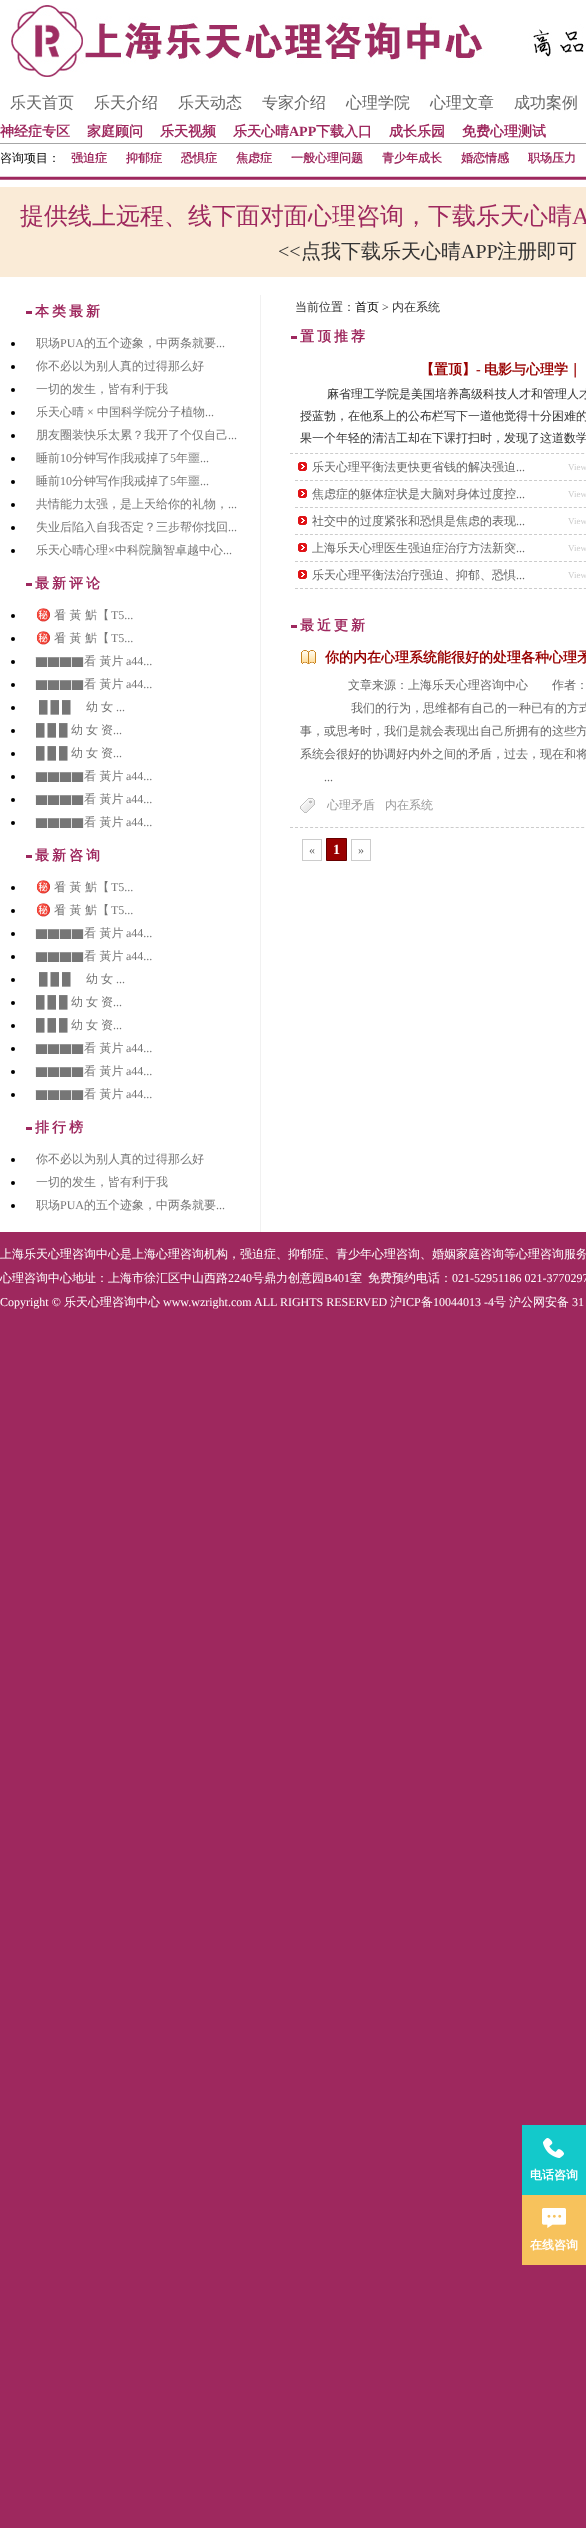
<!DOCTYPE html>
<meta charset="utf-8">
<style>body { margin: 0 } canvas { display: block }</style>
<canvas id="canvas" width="586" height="2528"></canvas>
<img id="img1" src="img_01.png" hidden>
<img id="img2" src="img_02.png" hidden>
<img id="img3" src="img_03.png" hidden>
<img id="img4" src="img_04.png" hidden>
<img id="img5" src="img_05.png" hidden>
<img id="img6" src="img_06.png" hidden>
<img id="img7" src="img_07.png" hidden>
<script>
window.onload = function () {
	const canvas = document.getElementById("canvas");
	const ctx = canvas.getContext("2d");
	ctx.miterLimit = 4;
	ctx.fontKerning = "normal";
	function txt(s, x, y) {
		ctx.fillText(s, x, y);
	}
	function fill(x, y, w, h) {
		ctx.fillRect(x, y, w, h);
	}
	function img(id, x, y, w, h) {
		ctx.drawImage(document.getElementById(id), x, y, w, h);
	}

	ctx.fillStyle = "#9E285E";
	fill(0, 0, 586, 2528);
	img("img1", 0, 0, 586, 295);
	img("img2", 11, 5, 573, 72);
	ctx.fillStyle = "#FAEBD7";
	fill(0, 187, 586, 90);
	ctx.fillStyle = "#FFFFFF";
	fill(0, 295, 586, 937);
	ctx.fillStyle = "#F1F1F1";
	fill(260, 295, 1, 937);
	ctx.fillStyle = "#9E285E";
	fill(26, 311, 6, 3);
	ctx.fillStyle = "#000000";
	ctx.beginPath();
	ctx.arc(13, 344, 2, 0, Math.PI * 2);
	ctx.fill();
	ctx.beginPath();
	ctx.arc(13, 367, 2, 0, Math.PI * 2);
	ctx.fill();
	ctx.beginPath();
	ctx.arc(13, 390, 2, 0, Math.PI * 2);
	ctx.fill();
	ctx.beginPath();
	ctx.arc(13, 413, 2, 0, Math.PI * 2);
	ctx.fill();
	ctx.beginPath();
	ctx.arc(13, 436, 2, 0, Math.PI * 2);
	ctx.fill();
	ctx.beginPath();
	ctx.arc(13, 459, 2, 0, Math.PI * 2);
	ctx.fill();
	ctx.beginPath();
	ctx.arc(13, 482, 2, 0, Math.PI * 2);
	ctx.fill();
	ctx.beginPath();
	ctx.arc(13, 505, 2, 0, Math.PI * 2);
	ctx.fill();
	ctx.beginPath();
	ctx.arc(13, 528, 2, 0, Math.PI * 2);
	ctx.fill();
	ctx.beginPath();
	ctx.arc(13, 551, 2, 0, Math.PI * 2);
	ctx.fill();
	ctx.fillStyle = "#9E285E";
	fill(26, 583, 6, 3);
	ctx.fillStyle = "#000000";
	ctx.beginPath();
	ctx.arc(13, 616, 2, 0, Math.PI * 2);
	ctx.fill();
	ctx.beginPath();
	ctx.arc(13, 639, 2, 0, Math.PI * 2);
	ctx.fill();
	ctx.beginPath();
	ctx.arc(13, 662, 2, 0, Math.PI * 2);
	ctx.fill();
	ctx.beginPath();
	ctx.arc(13, 685, 2, 0, Math.PI * 2);
	ctx.fill();
	ctx.beginPath();
	ctx.arc(13, 708, 2, 0, Math.PI * 2);
	ctx.fill();
	ctx.beginPath();
	ctx.arc(13, 731, 2, 0, Math.PI * 2);
	ctx.fill();
	ctx.beginPath();
	ctx.arc(13, 754, 2, 0, Math.PI * 2);
	ctx.fill();
	ctx.beginPath();
	ctx.arc(13, 777, 2, 0, Math.PI * 2);
	ctx.fill();
	ctx.beginPath();
	ctx.arc(13, 800, 2, 0, Math.PI * 2);
	ctx.fill();
	ctx.beginPath();
	ctx.arc(13, 823, 2, 0, Math.PI * 2);
	ctx.fill();
	ctx.fillStyle = "#9E285E";
	fill(26, 855, 6, 3);
	ctx.fillStyle = "#000000";
	ctx.beginPath();
	ctx.arc(13, 888, 2, 0, Math.PI * 2);
	ctx.fill();
	ctx.beginPath();
	ctx.arc(13, 911, 2, 0, Math.PI * 2);
	ctx.fill();
	ctx.beginPath();
	ctx.arc(13, 934, 2, 0, Math.PI * 2);
	ctx.fill();
	ctx.beginPath();
	ctx.arc(13, 957, 2, 0, Math.PI * 2);
	ctx.fill();
	ctx.beginPath();
	ctx.arc(13, 980, 2, 0, Math.PI * 2);
	ctx.fill();
	ctx.beginPath();
	ctx.arc(13, 1003, 2, 0, Math.PI * 2);
	ctx.fill();
	ctx.beginPath();
	ctx.arc(13, 1026, 2, 0, Math.PI * 2);
	ctx.fill();
	ctx.beginPath();
	ctx.arc(13, 1049, 2, 0, Math.PI * 2);
	ctx.fill();
	ctx.beginPath();
	ctx.arc(13, 1072, 2, 0, Math.PI * 2);
	ctx.fill();
	ctx.beginPath();
	ctx.arc(13, 1095, 2, 0, Math.PI * 2);
	ctx.fill();
	ctx.fillStyle = "#9E285E";
	fill(26, 1127, 6, 3);
	ctx.fillStyle = "#000000";
	ctx.beginPath();
	ctx.arc(13, 1160, 2, 0, Math.PI * 2);
	ctx.fill();
	ctx.beginPath();
	ctx.arc(13, 1183, 2, 0, Math.PI * 2);
	ctx.fill();
	ctx.beginPath();
	ctx.arc(13, 1206, 2, 0, Math.PI * 2);
	ctx.fill();
	ctx.fillStyle = "#9E285E";
	fill(291, 336, 6, 3);
	ctx.beginPath();
	ctx.moveTo(290, 453.5);
	ctx.lineTo(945, 453.5);
	ctx.strokeStyle = "#CCCCCC";
	ctx.setLineDash([3, 2.02]);
	ctx.stroke();
	img("img3", 298, 462, 9, 9);
	ctx.beginPath();
	ctx.moveTo(295, 480.5);
	ctx.lineTo(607, 480.5);
	ctx.setLineDash([3, 1.98]);
	ctx.stroke();
	img("img3", 298, 489, 9, 9);
	ctx.beginPath();
	ctx.moveTo(295, 507.5);
	ctx.lineTo(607, 507.5);
	ctx.stroke();
	img("img3", 298, 516, 9, 9);
	ctx.beginPath();
	ctx.moveTo(295, 534.5);
	ctx.lineTo(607, 534.5);
	ctx.stroke();
	img("img3", 298, 543, 9, 9);
	ctx.beginPath();
	ctx.moveTo(295, 561.5);
	ctx.lineTo(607, 561.5);
	ctx.stroke();
	img("img3", 298, 570, 9, 9);
	ctx.beginPath();
	ctx.moveTo(295, 588.5);
	ctx.lineTo(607, 588.5);
	ctx.stroke();
	fill(291, 625, 6, 3);
	ctx.beginPath();
	ctx.moveTo(290, 827.5);
	ctx.lineTo(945, 827.5);
	ctx.setLineDash([3, 2.02]);
	ctx.stroke();
	img("img4", 301, 650, 15, 14);
	img("img5", 300, 798, 15, 15);
	ctx.setLineDash([]);
	ctx.strokeRect(302.5, 839.5, 19, 21);
	ctx.fillStyle = "#990000";
	ctx.beginPath();
	ctx.rect(326.5, 838.5, 20, 22);
	ctx.fill();
	ctx.strokeStyle = "#660000";
	ctx.stroke();
	ctx.strokeStyle = "#CCCCCC";
	ctx.strokeRect(351.5, 839.5, 19, 21);
	ctx.fillStyle = "#13C9CB";
	fill(522, 2125, 64, 70);
	img("img6", 543, 2138, 21, 20);
	ctx.fillStyle = "#F7C25C";
	fill(522, 2195, 64, 70);
	img("img7", 542, 2208, 24, 20);
	ctx.font = "500 16px WenQuanYi Zen Hei";
	ctx.fillStyle = "#666666";
	txt("乐天首页", 10, 108);
	txt("乐天介绍", 94, 108);
	txt("乐天动态", 178, 108);
	txt("专家介绍", 262, 108);
	txt("心理学院", 346, 108);
	txt("心理文章", 430, 108);
	txt("成功案例", 514, 108);
	ctx.font = "bold 14px WenQuanYi Zen Hei";
	ctx.fillStyle = "#9E285E";
	txt("神经症专区", 0, 136);
	txt("家庭顾问", 87, 136);
	txt("乐天视频", 160, 136);
	txt("乐天心晴", 233, 136);
	ctx.font = "bold 14px Liberation Serif";
	txt("APP", 289, 136);
	ctx.font = "bold 14px WenQuanYi Zen Hei";
	txt("下载入口", 316, 136);
	txt("成长乐园", 389, 136);
	txt("免费心理测试", 462, 136);
	ctx.font = "500 12px WenQuanYi Zen Hei";
	ctx.fillStyle = "#000000";
	txt("咨询项目：", 0, 162);
	ctx.font = "bold 12px WenQuanYi Zen Hei";
	ctx.fillStyle = "#9E285E";
	txt("强迫症", 71, 162);
	txt("抑郁症", 126, 162);
	txt("恐惧症", 181, 162);
	txt("焦虑症", 236, 162);
	txt("一般心理问题", 291, 162);
	txt("青少年成长", 382, 162);
	txt("婚恋情感", 461, 162);
	txt("职场压力", 528, 162);
	ctx.font = "500 24px WenQuanYi Zen Hei";
	txt("提供线上远程、线下面对面心理咨询，下载乐天心晴", 20, 224);
	ctx.font = "24px Liberation Serif";
	txt("A", 572, 224);
	ctx.font = "20px Liberation Serif";
	ctx.fillStyle = "#333333";
	txt("<<", 278, 258);
	ctx.font = "500 20px WenQuanYi Zen Hei";
	txt("点我下载乐天心晴", 301, 258);
	ctx.font = "20px Liberation Serif";
	txt("APP", 461, 258);
	ctx.font = "500 20px WenQuanYi Zen Hei";
	txt("注册即可", 497, 258);
	ctx.letterSpacing = "3px";
	ctx.font = "bold 14px WenQuanYi Zen Hei";
	ctx.fillStyle = "#9E285E";
	txt("本类最新", 35, 316);
	ctx.letterSpacing = "0px";
	ctx.font = "500 12px WenQuanYi Zen Hei";
	ctx.fillStyle = "#767676";
	txt("职场", 36, 347);
	ctx.font = "12px Liberation Serif";
	txt("PUA", 60, 347);
	ctx.font = "500 12px WenQuanYi Zen Hei";
	txt("的五个迹象，中两条就要", 84, 347);
	ctx.font = "12px Liberation Serif";
	txt("...", 216, 347);
	ctx.font = "500 12px WenQuanYi Zen Hei";
	txt("你不必以为别人真的过得那么好", 36, 370);
	txt("一切的发生，皆有利于我", 36, 393);
	txt("乐天心晴", 36, 416);
	ctx.font = "12px Liberation Serif";
	txt("×", 87, 416);
	ctx.font = "500 12px WenQuanYi Zen Hei";
	txt("中国科学院分子植物", 97, 416);
	ctx.font = "12px Liberation Serif";
	txt("...", 205, 416);
	ctx.font = "500 12px WenQuanYi Zen Hei";
	txt("朋友圈装快乐太累？我开了个仅自己", 36, 439);
	ctx.font = "12px Liberation Serif";
	txt("...", 228, 439);
	ctx.font = "500 12px WenQuanYi Zen Hei";
	txt("睡前", 36, 462);
	ctx.font = "12px Liberation Serif";
	txt("10", 60, 462);
	ctx.font = "500 12px WenQuanYi Zen Hei";
	txt("分钟写作", 72, 462);
	ctx.font = "12px Liberation Serif";
	txt("|", 120, 462);
	ctx.font = "500 12px WenQuanYi Zen Hei";
	txt("我戒掉了", 122, 462);
	ctx.font = "12px Liberation Serif";
	txt("5", 170, 462);
	ctx.font = "500 12px WenQuanYi Zen Hei";
	txt("年噩", 176, 462);
	ctx.font = "12px Liberation Serif";
	txt("...", 200, 462);
	ctx.font = "500 12px WenQuanYi Zen Hei";
	txt("睡前", 36, 485);
	ctx.font = "12px Liberation Serif";
	txt("10", 60, 485);
	ctx.font = "500 12px WenQuanYi Zen Hei";
	txt("分钟写作", 72, 485);
	ctx.font = "12px Liberation Serif";
	txt("|", 120, 485);
	ctx.font = "500 12px WenQuanYi Zen Hei";
	txt("我戒掉了", 122, 485);
	ctx.font = "12px Liberation Serif";
	txt("5", 170, 485);
	ctx.font = "500 12px WenQuanYi Zen Hei";
	txt("年噩", 176, 485);
	ctx.font = "12px Liberation Serif";
	txt("...", 200, 485);
	ctx.font = "500 12px WenQuanYi Zen Hei";
	txt("共情能力太强，是上天给你的礼物，", 36, 508);
	ctx.font = "12px Liberation Serif";
	txt("...", 228, 508);
	ctx.font = "500 12px WenQuanYi Zen Hei";
	txt("失业后陷入自我否定？三步帮你找回", 36, 531);
	ctx.font = "12px Liberation Serif";
	txt("...", 228, 531);
	ctx.font = "500 12px WenQuanYi Zen Hei";
	txt("乐天心晴心理", 36, 554);
	ctx.font = "12px Liberation Serif";
	txt("×", 108, 554);
	ctx.font = "500 12px WenQuanYi Zen Hei";
	txt("中科院脑智卓越中心", 115, 554);
	ctx.font = "12px Liberation Serif";
	txt("...", 223, 554);
	ctx.letterSpacing = "3px";
	ctx.font = "bold 14px WenQuanYi Zen Hei";
	ctx.fillStyle = "#9E285E";
	txt("最新评论", 35, 588);
	ctx.letterSpacing = "0px";
	ctx.font = "12px Noto Color Emoji";
	ctx.fillStyle = "#767676";
	txt("㊙️", 36, 619);
	ctx.font = "500 12px WenQuanYi Zen Hei";
	txt("㸔 黃 魸【", 54, 619);
	ctx.font = "12px Liberation Serif";
	txt("T5...", 111, 619);
	ctx.font = "12px Noto Color Emoji";
	txt("㊙️", 36, 642);
	ctx.font = "500 12px WenQuanYi Zen Hei";
	txt("㸔 黃 魸【", 54, 642);
	ctx.font = "12px Liberation Serif";
	txt("T5...", 111, 642);
	ctx.font = "500 12px WenQuanYi Zen Hei";
	txt("▇▇▇▇看 黃片", 36, 665);
	ctx.font = "12px Liberation Serif";
	txt("a44...", 126, 665);
	ctx.font = "500 12px WenQuanYi Zen Hei";
	txt("▇▇▇▇看 黃片", 36, 688);
	ctx.font = "12px Liberation Serif";
	txt("a44...", 126, 688);
	txt("￼ █ █ █", 36, 711);
	ctx.font = "500 12px WenQuanYi Zen Hei";
	txt("幼", 86, 711);
	txt("女", 101, 711);
	ctx.font = "12px Liberation Serif";
	txt("...", 116, 711);
	txt("█ █ █", 36, 734);
	ctx.font = "500 12px WenQuanYi Zen Hei";
	txt("幼", 71, 734);
	txt("女", 86, 734);
	txt("资", 101, 734);
	ctx.font = "12px Liberation Serif";
	txt("...", 113, 734);
	txt("█ █ █", 36, 757);
	ctx.font = "500 12px WenQuanYi Zen Hei";
	txt("幼", 71, 757);
	txt("女", 86, 757);
	txt("资", 101, 757);
	ctx.font = "12px Liberation Serif";
	txt("...", 113, 757);
	ctx.font = "500 12px WenQuanYi Zen Hei";
	txt("▇▇▇▇看 黃片", 36, 780);
	ctx.font = "12px Liberation Serif";
	txt("a44...", 126, 780);
	ctx.font = "500 12px WenQuanYi Zen Hei";
	txt("▇▇▇▇看 黃片", 36, 803);
	ctx.font = "12px Liberation Serif";
	txt("a44...", 126, 803);
	ctx.font = "500 12px WenQuanYi Zen Hei";
	txt("▇▇▇▇看 黃片", 36, 826);
	ctx.font = "12px Liberation Serif";
	txt("a44...", 126, 826);
	ctx.letterSpacing = "3px";
	ctx.font = "bold 14px WenQuanYi Zen Hei";
	ctx.fillStyle = "#9E285E";
	txt("最新咨询", 35, 860);
	ctx.letterSpacing = "0px";
	ctx.font = "12px Noto Color Emoji";
	ctx.fillStyle = "#767676";
	txt("㊙️", 36, 891);
	ctx.font = "500 12px WenQuanYi Zen Hei";
	txt("㸔 黃 魸【", 54, 891);
	ctx.font = "12px Liberation Serif";
	txt("T5...", 111, 891);
	ctx.font = "12px Noto Color Emoji";
	txt("㊙️", 36, 914);
	ctx.font = "500 12px WenQuanYi Zen Hei";
	txt("㸔 黃 魸【", 54, 914);
	ctx.font = "12px Liberation Serif";
	txt("T5...", 111, 914);
	ctx.font = "500 12px WenQuanYi Zen Hei";
	txt("▇▇▇▇看 黃片", 36, 937);
	ctx.font = "12px Liberation Serif";
	txt("a44...", 126, 937);
	ctx.font = "500 12px WenQuanYi Zen Hei";
	txt("▇▇▇▇看 黃片", 36, 960);
	ctx.font = "12px Liberation Serif";
	txt("a44...", 126, 960);
	txt("￼ █ █ █", 36, 983);
	ctx.font = "500 12px WenQuanYi Zen Hei";
	txt("幼", 86, 983);
	txt("女", 101, 983);
	ctx.font = "12px Liberation Serif";
	txt("...", 116, 983);
	txt("█ █ █", 36, 1006);
	ctx.font = "500 12px WenQuanYi Zen Hei";
	txt("幼", 71, 1006);
	txt("女", 86, 1006);
	txt("资", 101, 1006);
	ctx.font = "12px Liberation Serif";
	txt("...", 113, 1006);
	txt("█ █ █", 36, 1029);
	ctx.font = "500 12px WenQuanYi Zen Hei";
	txt("幼", 71, 1029);
	txt("女", 86, 1029);
	txt("资", 101, 1029);
	ctx.font = "12px Liberation Serif";
	txt("...", 113, 1029);
	ctx.font = "500 12px WenQuanYi Zen Hei";
	txt("▇▇▇▇看 黃片", 36, 1052);
	ctx.font = "12px Liberation Serif";
	txt("a44...", 126, 1052);
	ctx.font = "500 12px WenQuanYi Zen Hei";
	txt("▇▇▇▇看 黃片", 36, 1075);
	ctx.font = "12px Liberation Serif";
	txt("a44...", 126, 1075);
	ctx.font = "500 12px WenQuanYi Zen Hei";
	txt("▇▇▇▇看 黃片", 36, 1098);
	ctx.font = "12px Liberation Serif";
	txt("a44...", 126, 1098);
	ctx.letterSpacing = "3px";
	ctx.font = "bold 14px WenQuanYi Zen Hei";
	ctx.fillStyle = "#9E285E";
	txt("排行榜", 35, 1132);
	ctx.letterSpacing = "0px";
	ctx.font = "500 12px WenQuanYi Zen Hei";
	ctx.fillStyle = "#767676";
	txt("你不必以为别人真的过得那么好", 36, 1163);
	txt("一切的发生，皆有利于我", 36, 1186);
	txt("职场", 36, 1209);
	ctx.font = "12px Liberation Serif";
	txt("PUA", 60, 1209);
	ctx.font = "500 12px WenQuanYi Zen Hei";
	txt("的五个迹象，中两条就要", 84, 1209);
	ctx.font = "12px Liberation Serif";
	txt("...", 216, 1209);
	ctx.font = "500 12px WenQuanYi Zen Hei";
	ctx.fillStyle = "#333333";
	txt("当前位置：", 295, 311);
	ctx.fillStyle = "#000000";
	txt("首页", 355, 311);
	ctx.font = "12px Liberation Serif";
	ctx.fillStyle = "#333333";
	txt(">", 382, 311);
	ctx.font = "500 12px WenQuanYi Zen Hei";
	txt("内在系统", 392, 311);
	ctx.letterSpacing = "3px";
	ctx.font = "bold 14px WenQuanYi Zen Hei";
	ctx.fillStyle = "#9E285E";
	txt("置顶推荐", 300, 341);
	ctx.letterSpacing = "0px";
	ctx.fillStyle = "#990000";
	txt("【置顶】", 420, 374);
	ctx.font = "bold 14px Liberation Serif";
	txt("-", 476, 374);
	ctx.font = "bold 14px WenQuanYi Zen Hei";
	txt("电影与心理学｜", 484, 374);
	ctx.font = "500 12px WenQuanYi Zen Hei";
	ctx.fillStyle = "#333333";
	txt("麻省理工学院是美国培养高级科技人才和管理人才", 327, 398);
	txt("授蓝勃，在他系上的公布栏写下一道他觉得十分困难的", 300, 420);
	txt("果一个年轻的清洁工却在下课打扫时，发现了这道数学", 300, 442);
	ctx.fillStyle = "#666666";
	txt("乐天心理平衡法更快更省钱的解决强迫", 312, 471);
	ctx.font = "12px Liberation Serif";
	txt("...", 516, 471);
	ctx.font = "9px Liberation Serif";
	ctx.fillStyle = "#CCCCCC";
	txt("View", 568, 470);
	ctx.font = "500 12px WenQuanYi Zen Hei";
	ctx.fillStyle = "#666666";
	txt("焦虑症的躯体症状是大脑对身体过度控", 312, 498);
	ctx.font = "12px Liberation Serif";
	txt("...", 516, 498);
	ctx.font = "9px Liberation Serif";
	ctx.fillStyle = "#CCCCCC";
	txt("View", 568, 497);
	ctx.font = "500 12px WenQuanYi Zen Hei";
	ctx.fillStyle = "#666666";
	txt("社交中的过度紧张和恐惧是焦虑的表现", 312, 525);
	ctx.font = "12px Liberation Serif";
	txt("...", 516, 525);
	ctx.font = "9px Liberation Serif";
	ctx.fillStyle = "#CCCCCC";
	txt("View", 568, 524);
	ctx.font = "500 12px WenQuanYi Zen Hei";
	ctx.fillStyle = "#666666";
	txt("上海乐天心理医生强迫症治疗方法新突", 312, 552);
	ctx.font = "12px Liberation Serif";
	txt("...", 516, 552);
	ctx.font = "9px Liberation Serif";
	ctx.fillStyle = "#CCCCCC";
	txt("View", 568, 551);
	ctx.font = "500 12px WenQuanYi Zen Hei";
	ctx.fillStyle = "#666666";
	txt("乐天心理平衡法治疗强迫、抑郁、恐惧", 312, 579);
	ctx.font = "12px Liberation Serif";
	txt("...", 516, 579);
	ctx.font = "9px Liberation Serif";
	ctx.fillStyle = "#CCCCCC";
	txt("View", 568, 578);
	ctx.letterSpacing = "3px";
	ctx.font = "bold 14px WenQuanYi Zen Hei";
	ctx.fillStyle = "#9E285E";
	txt("最近更新", 300, 630);
	ctx.letterSpacing = "0px";
	ctx.fillStyle = "#990000";
	txt("你的内在心理系统能很好的处理各种心理矛", 325, 662);
	ctx.font = "500 12px WenQuanYi Zen Hei";
	ctx.fillStyle = "#666666";
	txt("文章来源：上海乐天心理咨询中心", 348, 689);
	txt("作者：", 552, 689);
	txt("我们的行为，思维都有自己的一种已有的方式", 351, 712);
	txt("事，或思考时，我们是就会表现出自己所拥有的这些方", 300, 735);
	txt("系统会很好的协调好内外之间的矛盾，过去，现在和将", 300, 758);
	ctx.font = "12px Liberation Serif";
	txt("...", 324, 781);
	ctx.font = "500 12px WenQuanYi Zen Hei";
	ctx.fillStyle = "#999999";
	txt("心理矛盾", 327, 809);
	txt("内在系统", 385, 809);
	ctx.font = "12px Liberation Serif";
	ctx.fillStyle = "#666666";
	txt("«", 309, 854);
	ctx.font = "bold 14px Liberation Serif";
	ctx.fillStyle = "#FFFFFF";
	txt("1", 333, 854);
	ctx.font = "12px Liberation Serif";
	ctx.fillStyle = "#666666";
	txt("»", 358, 854);
	ctx.font = "500 12px WenQuanYi Zen Hei";
	ctx.fillStyle = "#FFFFFF";
	txt("上海乐天心理咨询中心是上海心理咨询机构，强迫症、抑郁症、青少年心理咨询、婚姻家庭咨询等心理咨询服务", 0, 1258);
	txt("心理咨询中心地址：上海市徐汇区中山西路", 0, 1282);
	ctx.font = "12px Liberation Serif";
	txt("2240", 228, 1282);
	ctx.font = "500 12px WenQuanYi Zen Hei";
	txt("号鼎力创意园", 252, 1282);
	ctx.font = "12px Liberation Serif";
	txt("B401", 324, 1282);
	ctx.font = "500 12px WenQuanYi Zen Hei";
	txt("室", 350, 1282);
	txt("免费预约电话：", 368, 1282);
	ctx.font = "12px Liberation Serif";
	txt("021-52951186 021-3770297", 452, 1282);
	txt("Copyright ©", 0, 1306);
	ctx.font = "500 12px WenQuanYi Zen Hei";
	txt("乐天心理咨询中心", 64, 1306);
	ctx.font = "12px Liberation Serif";
	txt("www.wzright.com", 163, 1306);
	txt("ALL RIGHTS RESERVED", 254, 1306);
	ctx.font = "500 12px WenQuanYi Zen Hei";
	txt("沪", 390, 1306);
	ctx.font = "12px Liberation Serif";
	txt("ICP", 402, 1306);
	ctx.font = "500 12px WenQuanYi Zen Hei";
	txt("备", 421, 1306);
	ctx.font = "12px Liberation Serif";
	txt("10044013 -4", 433, 1306);
	ctx.font = "500 12px WenQuanYi Zen Hei";
	txt("号", 494, 1306);
	txt("沪公网安备", 509, 1306);
	ctx.font = "12px Liberation Serif";
	txt("31", 572, 1306);
	ctx.font = "bold 12px WenQuanYi Zen Hei";
	txt("电话咨询", 530, 2179);
	txt("在线咨询", 530, 2249);
};
</script>
